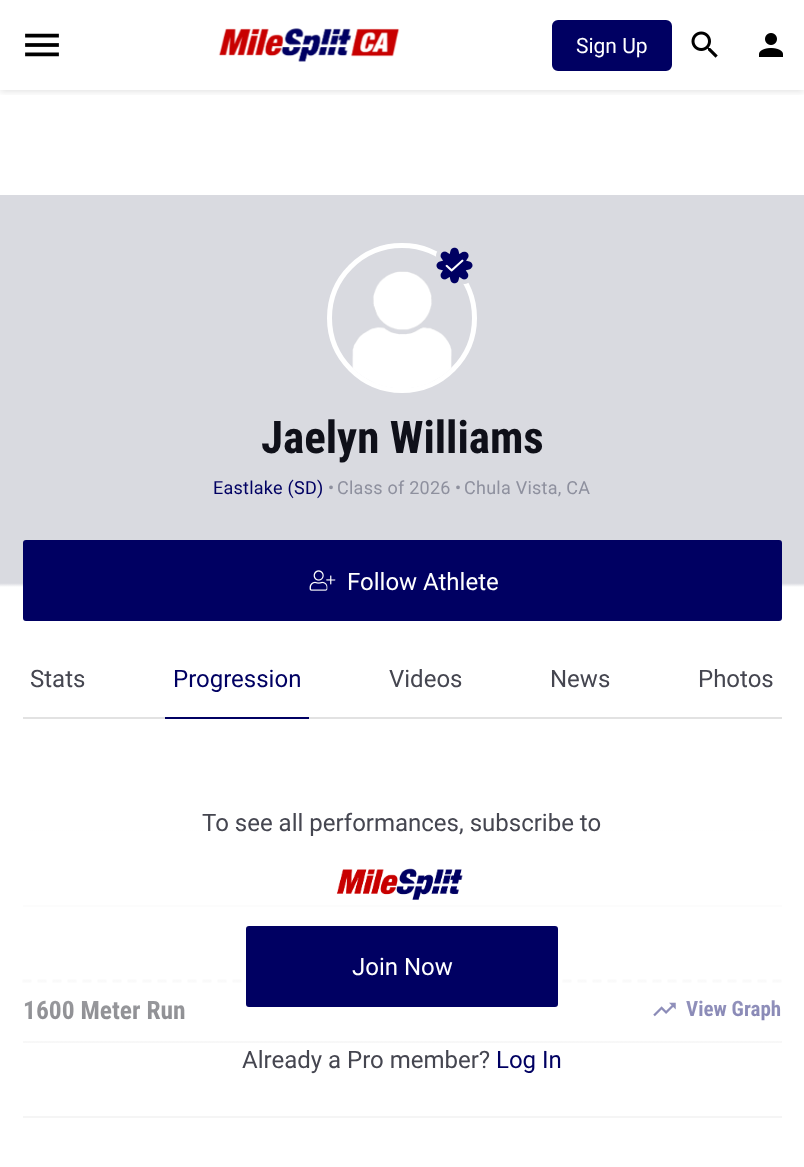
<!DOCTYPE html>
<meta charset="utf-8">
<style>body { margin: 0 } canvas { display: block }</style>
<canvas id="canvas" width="804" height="1167"></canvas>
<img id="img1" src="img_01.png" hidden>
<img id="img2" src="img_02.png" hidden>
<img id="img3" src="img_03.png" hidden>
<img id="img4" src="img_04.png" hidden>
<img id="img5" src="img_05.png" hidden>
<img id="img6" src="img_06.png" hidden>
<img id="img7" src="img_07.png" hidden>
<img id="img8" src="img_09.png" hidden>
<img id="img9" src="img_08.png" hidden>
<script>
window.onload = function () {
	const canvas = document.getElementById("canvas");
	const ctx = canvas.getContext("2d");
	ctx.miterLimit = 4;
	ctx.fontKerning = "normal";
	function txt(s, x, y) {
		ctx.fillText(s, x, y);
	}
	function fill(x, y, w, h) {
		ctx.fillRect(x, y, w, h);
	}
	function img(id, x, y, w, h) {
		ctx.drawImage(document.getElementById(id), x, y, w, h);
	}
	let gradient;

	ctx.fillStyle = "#FFFFFF";
	fill(0, 0, 804, 1167);
	ctx.save();
	ctx.beginPath();
	ctx.rect(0, 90, 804, 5);
	ctx.clip();
	ctx.fillStyle = "rgba(0, 0, 0, 0.1)";
	ctx.filter = "blur(3px)";
	ctx.beginPath();
	ctx.rect(0, 2, 804, 90);
	ctx.fill();
	ctx.filter = "none";
	ctx.restore();
	img("img1", 25, 33, 34, 24);
	img("img2", 218, 28, 182, 34);
	ctx.fillStyle = "#000062";
	ctx.beginPath();
	ctx.roundRect(553, 21, 118, 49, 5);
	ctx.fill();
	ctx.strokeStyle = "#000062";
	ctx.lineWidth = 2;
	ctx.stroke();
	img("img3", 691, 31, 27, 27);
	img("img4", 759, 33, 24, 24);
	ctx.fillStyle = "#D9DAE0";
	fill(0, 195, 804, 48);
	gradient = ctx.createLinearGradient(402, 243, 402, 621);
	gradient.addColorStop(0.9, "#D9DAE0");
	gradient.addColorStop(0.91, "#FFFFFF");
	ctx.fillStyle = gradient;
	fill(0, 243, 804, 344);
	ctx.beginPath();
	ctx.arc(402, 318, 72.5, 0, Math.PI * 2);
	ctx.strokeStyle = "#FFFFFF";
	ctx.lineWidth = 5;
	ctx.stroke();
	img("img5", 352, 271, 100, 117);
	img("img6", 436, 247, 37, 37);
	ctx.fillStyle = "#000062";
	ctx.beginPath();
	ctx.roundRect(24, 541, 757, 79, 2);
	ctx.fill();
	ctx.strokeStyle = "#000062";
	ctx.lineWidth = 2;
	ctx.stroke();
	img("img7", 309, 570, 27, 21);
	ctx.fillStyle = "#E2E2E2";
	fill(23, 717, 759, 2);
	ctx.fillStyle = "#000062";
	fill(165, 717, 144, 2);
	ctx.beginPath();
	ctx.moveTo(22.5, 981);
	ctx.lineTo(781.5, 981);
	ctx.strokeStyle = "#F1F1F1";
	ctx.lineWidth = 3;
	ctx.setLineDash([9, 6]);
	ctx.stroke();
	ctx.fillStyle = "#F1F1F1";
	fill(23, 830, 759, 2);
	fill(23, 905, 759, 2);
	img("img8", 653, 1002, 23, 15);
	fill(23, 1041, 759, 2);
	fill(23, 1116, 759, 2);
	ctx.font = "21px Roboto";
	ctx.fillStyle = "#FFFFFF";
	txt("Sign Up", 576, 53);
	ctx.font = "bold 45px Roboto Condensed";
	ctx.fillStyle = "#0F1019";
	txt("Jaelyn Williams", 261, 453);
	ctx.letterSpacing = "0.25px";
	ctx.font = "18px Roboto";
	ctx.fillStyle = "#000062";
	txt("Eastlake (SD)", 213, 494);
	ctx.fillStyle = "#8E909E";
	txt("•", 328, 494);
	txt("Class of 2026", 337, 494);
	txt("•", 455, 494);
	txt("Chula Vista, CA", 464, 494);
	ctx.letterSpacing = "0px";
	ctx.font = "24px Roboto";
	ctx.fillStyle = "#FFFFFF";
	txt("Follow Athlete", 347, 590);
	ctx.fillStyle = "#454650";
	txt("Stats", 30, 687);
	ctx.fillStyle = "#000062";
	txt("Progression", 173, 687);
	ctx.fillStyle = "#454650";
	txt("Videos", 389, 687);
	txt("News", 550, 687);
	txt("Photos", 698, 687);
	ctx.font = "bold 25.5px Roboto Condensed";
	ctx.fillStyle = "#0F1019";
	txt("1600 Meter Run", 23, 1019);
	ctx.font = "bold 21px Roboto Condensed";
	ctx.fillStyle = "#000062";
	txt("View Graph", 686, 1016);
	gradient = ctx.createLinearGradient(402, 720, 402, 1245);
	gradient.addColorStop(0.2, "#FFFFFF");
	gradient.addColorStop(0.43, "rgba(255, 255, 255, 0.7)");
	gradient.addColorStop(0.44, "rgba(255, 255, 255, 0.69)");
	gradient.addColorStop(1, "rgba(255, 255, 255, 0)");
	ctx.fillStyle = gradient;
	fill(22, 830, 760, 288);
	ctx.font = "24px Roboto";
	ctx.fillStyle = "#000062";
	txt("Log In", 496, 1068);
	ctx.fillStyle = "#454650";
	txt("Already a Pro member?", 242, 1068);
	ctx.fillStyle = "#000062";
	ctx.beginPath();
	ctx.roundRect(247, 927, 310, 79, 2);
	ctx.fill();
	ctx.strokeStyle = "#000062";
	ctx.lineWidth = 2;
	ctx.setLineDash([]);
	ctx.stroke();
	ctx.fillStyle = "#FFFFFF";
	txt("Join Now", 352, 975);
	img("img9", 336, 868, 127, 32);
	ctx.fillStyle = "#454650";
	txt("To see all performances, subscribe to", 202, 831);
};
</script>
